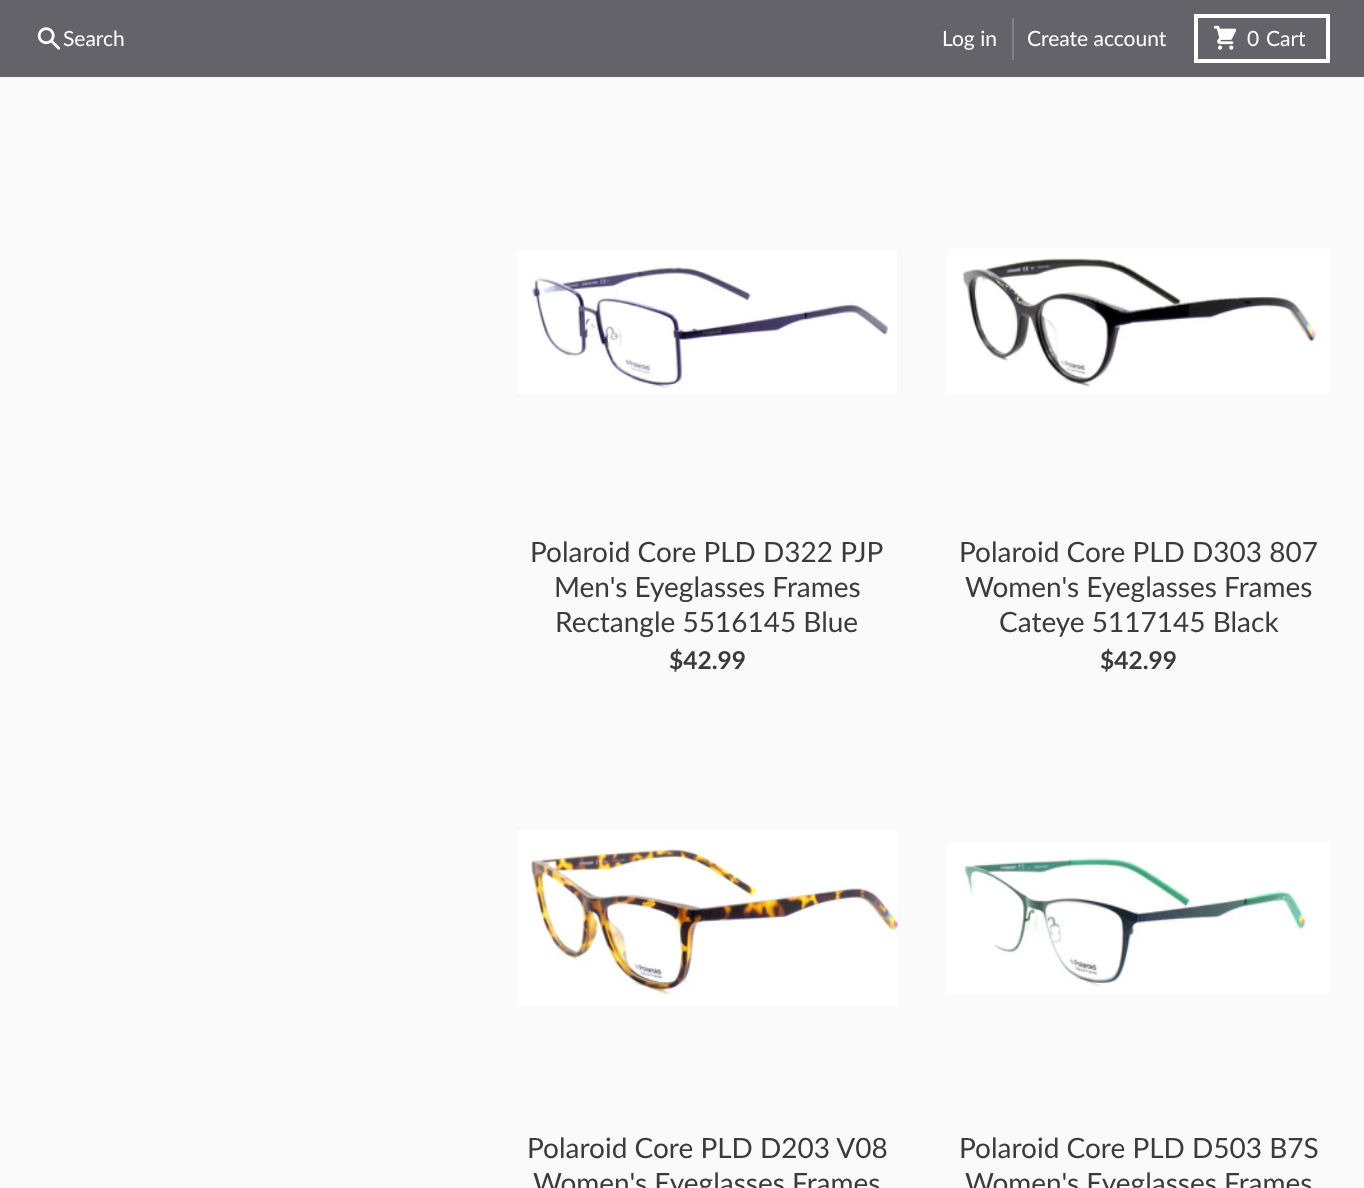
<!DOCTYPE html>
<meta charset="utf-8">
<style>body { margin: 0 } canvas { display: block }</style>
<canvas id="canvas" width="1364" height="1188"></canvas>
<img id="img1" src="img_01.png" hidden>
<img id="img2" src="img_02.png" hidden>
<img id="img3" src="img_03.png" hidden>
<img id="img4" src="img_04.png" hidden>
<img id="img5" src="img_05.png" hidden>
<img id="img6" src="img_06.png" hidden>
<script>
window.onload = function () {
	const canvas = document.getElementById("canvas");
	const ctx = canvas.getContext("2d");
	ctx.miterLimit = 4;
	ctx.fontKerning = "normal";
	function txt(s, x, y) {
		ctx.fillText(s, x, y);
	}
	function fill(x, y, w, h) {
		ctx.fillRect(x, y, w, h);
	}
	function img(id, x, y, w, h) {
		ctx.drawImage(document.getElementById(id), x, y, w, h);
	}

	ctx.fillStyle = "#FAFAFA";
	fill(0, 0, 1364, 1188);
	ctx.fillStyle = "#65636A";
	fill(0, 0, 1364, 77);
	img("img1", 37, 27, 24, 23);
	ctx.fillStyle = "#848288";
	fill(1012, 18, 2, 42);
	ctx.strokeStyle = "#FFFFFF";
	ctx.lineWidth = 4;
	ctx.strokeRect(1196, 16, 132, 45);
	img("img2", 1213, 25, 24, 25);
	img("img3", 517, 251, 380, 143);
	img("img4", 947, 249, 383, 145);
	img("img5", 517, 830, 381, 176);
	img("img6", 947, 842, 383, 152);
	ctx.font = "21px Lato";
	ctx.fillStyle = "#FFFFFF";
	txt("Search", 63, 46);
	txt("Log in", 942, 46);
	txt("Create account", 1027, 46);
	txt("0", 1247, 46);
	txt("Cart", 1266, 46);
	ctx.font = "28px Lato";
	ctx.fillStyle = "#3B3A3D";
	txt("Polaroid Core PLD D322 PJP", 530, 562);
	txt("Men's Eyeglasses Frames", 554, 597);
	txt("Rectangle 5516145 Blue", 555, 632);
	ctx.font = "bold 24.5px Lato";
	txt("$42.99", 669, 669);
	ctx.font = "28px Lato";
	txt("Polaroid Core PLD D303 807", 959, 562);
	txt("Women's Eyeglasses Frames", 965, 597);
	txt("Cateye 5117145 Black", 999, 632);
	ctx.font = "bold 24.5px Lato";
	txt("$42.99", 1100, 669);
	ctx.font = "28px Lato";
	txt("Polaroid Core PLD D203 V08", 527, 1158);
	txt("Women's Eyeglasses Frames", 533, 1193);
	txt("Polaroid Core PLD D503 B7S", 959, 1158);
	txt("Women's Eyeglasses Frames", 965, 1193);
};
</script>
